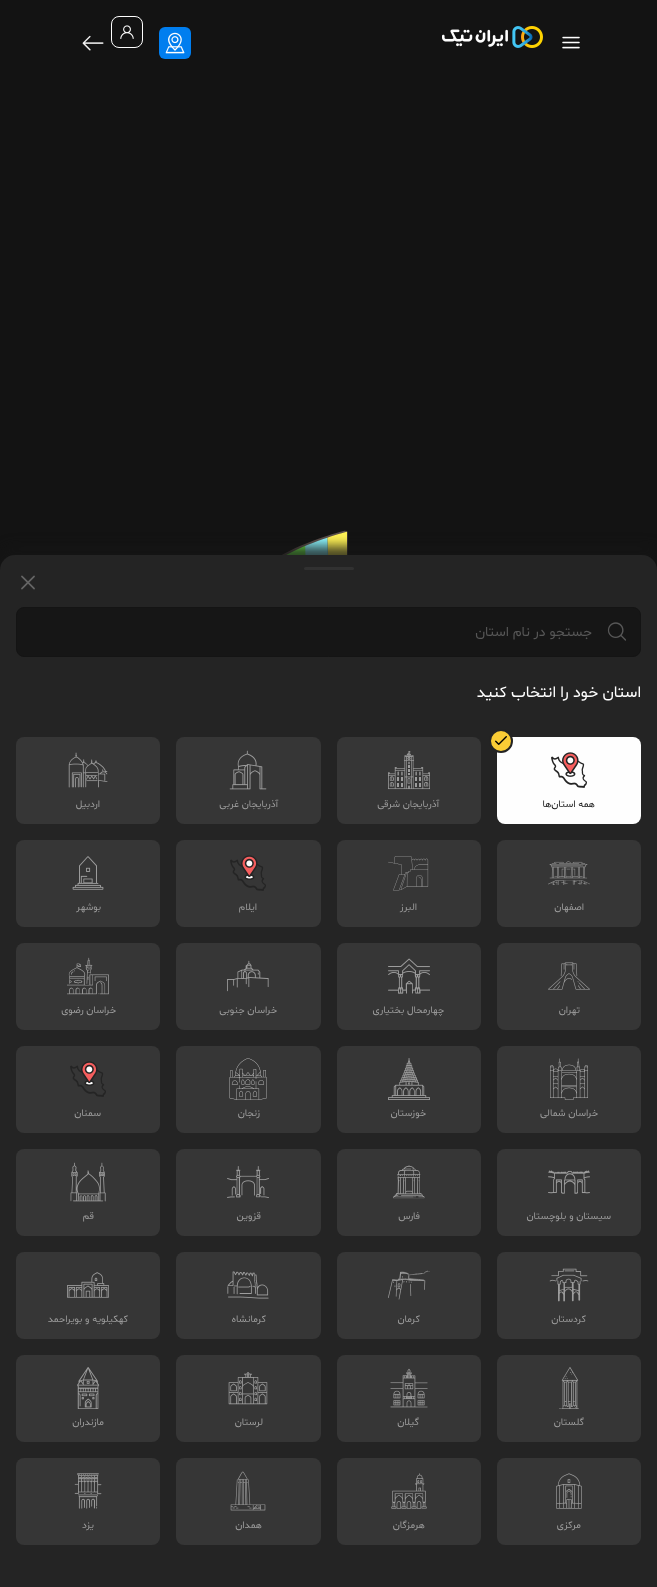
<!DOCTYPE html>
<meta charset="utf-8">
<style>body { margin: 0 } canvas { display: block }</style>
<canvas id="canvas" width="657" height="1587"></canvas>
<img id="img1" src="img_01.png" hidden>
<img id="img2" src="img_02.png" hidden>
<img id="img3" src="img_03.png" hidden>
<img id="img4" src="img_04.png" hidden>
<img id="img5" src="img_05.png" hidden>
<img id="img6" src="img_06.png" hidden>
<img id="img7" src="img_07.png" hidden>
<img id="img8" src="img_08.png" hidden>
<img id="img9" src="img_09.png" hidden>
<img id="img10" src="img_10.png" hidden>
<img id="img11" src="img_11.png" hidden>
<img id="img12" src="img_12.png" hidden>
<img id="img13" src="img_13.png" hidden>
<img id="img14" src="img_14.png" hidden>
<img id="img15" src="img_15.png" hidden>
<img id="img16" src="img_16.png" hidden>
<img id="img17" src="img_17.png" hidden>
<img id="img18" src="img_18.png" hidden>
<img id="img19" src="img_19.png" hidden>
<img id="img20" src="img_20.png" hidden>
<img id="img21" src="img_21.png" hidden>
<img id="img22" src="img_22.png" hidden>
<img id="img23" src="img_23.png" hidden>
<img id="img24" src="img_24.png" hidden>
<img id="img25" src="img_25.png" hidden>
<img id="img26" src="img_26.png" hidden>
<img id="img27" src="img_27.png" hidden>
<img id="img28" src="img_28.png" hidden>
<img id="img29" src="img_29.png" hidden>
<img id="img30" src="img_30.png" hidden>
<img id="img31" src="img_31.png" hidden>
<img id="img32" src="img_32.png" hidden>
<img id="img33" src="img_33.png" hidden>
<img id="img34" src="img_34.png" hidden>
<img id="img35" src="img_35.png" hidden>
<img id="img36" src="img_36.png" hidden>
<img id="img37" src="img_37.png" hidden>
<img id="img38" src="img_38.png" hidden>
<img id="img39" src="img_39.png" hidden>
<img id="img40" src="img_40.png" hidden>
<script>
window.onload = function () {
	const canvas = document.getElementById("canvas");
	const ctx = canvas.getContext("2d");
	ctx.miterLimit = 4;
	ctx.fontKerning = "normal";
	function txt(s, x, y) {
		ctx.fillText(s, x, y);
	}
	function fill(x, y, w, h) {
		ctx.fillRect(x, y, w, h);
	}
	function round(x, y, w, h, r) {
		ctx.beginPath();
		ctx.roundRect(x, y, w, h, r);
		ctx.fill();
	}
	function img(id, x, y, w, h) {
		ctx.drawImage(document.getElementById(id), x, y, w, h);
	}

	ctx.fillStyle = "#131313";
	fill(0, 0, 657, 1587);
	img("img1", 562, 36, 18, 13);
	img("img2", 442, 26, 101, 22);
	ctx.fillStyle = "#007EEF";
	round(159, 27, 32, 32, 6);
	img("img3", 165, 32, 20, 22);
	ctx.beginPath();
	ctx.roundRect(111.5, 16.5, 31, 31, 7.5);
	ctx.strokeStyle = "#FEFEFE";
	ctx.stroke();
	img("img4", 120, 25, 14, 14);
	img("img5", 82, 35, 22, 16);
	img("img6", 282, 530, 66, 25);
	ctx.fillStyle = "rgba(20, 20, 20, 0.79)";
	ctx.filter = "blur(6px)";
	ctx.beginPath();
	ctx.roundRect(-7, 546, 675, 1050, 24);
	ctx.fill();
	ctx.filter = "none";
	ctx.fillStyle = "#242424";
	ctx.beginPath();
	ctx.roundRect(0, 555, 657, 1032, [15, 15, 0, 0]);
	ctx.fill();
	ctx.fillStyle = "#313131";
	round(304, 567, 50, 3, 1.5);
	img("img7", 21, 575, 14, 15);
	ctx.fillStyle = "#161616";
	ctx.beginPath();
	ctx.roundRect(16.5, 607.5, 624, 49, 7.5);
	ctx.fill();
	ctx.strokeStyle = "#141414";
	ctx.stroke();
	img("img8", 607, 622, 19, 19);
	ctx.fillStyle = "#FEFEFE";
	round(497, 737, 144, 87, 8);
	ctx.fillStyle = "#FBCD35";
	ctx.beginPath();
	ctx.arc(501, 741, 11, 0, Math.PI * 2);
	ctx.fill();
	ctx.strokeStyle = "#242424";
	ctx.lineWidth = 2;
	ctx.stroke();
	img("img9", 495, 736, 12, 9);
	img("img10", 551, 752, 36, 36);
	ctx.fillStyle = "#363636";
	round(337, 737, 144, 87, 8);
	img("img11", 388, 751, 42, 39);
	round(176, 737, 145, 87, 8);
	img("img12", 229, 750, 38, 40);
	round(16, 737, 144, 87, 8);
	img("img13", 68, 752, 40, 36);
	round(497, 840, 144, 87, 8);
	img("img14", 548, 861, 42, 24);
	round(337, 840, 144, 87, 8);
	img("img15", 388, 856, 41, 35);
	round(176, 840, 145, 87, 8);
	img("img16", 230, 855, 36, 36);
	round(16, 840, 144, 87, 8);
	img("img17", 72, 856, 32, 34);
	round(497, 943, 144, 87, 8);
	img("img18", 548, 962, 42, 28);
	round(337, 943, 144, 87, 8);
	img("img19", 388, 958, 42, 36);
	round(176, 943, 145, 87, 8);
	img("img20", 227, 960, 42, 32);
	round(16, 943, 144, 87, 8);
	img("img21", 67, 957, 42, 38);
	round(497, 1046, 144, 87, 8);
	img("img22", 550, 1058, 38, 42);
	round(337, 1046, 144, 87, 8);
	img("img23", 388, 1058, 42, 42);
	round(176, 1046, 145, 87, 8);
	img("img24", 229, 1058, 38, 42);
	round(16, 1046, 144, 87, 8);
	img("img16", 70, 1061, 36, 36);
	round(497, 1149, 144, 87, 8);
	img("img25", 548, 1170, 42, 24);
	round(337, 1149, 144, 87, 8);
	img("img26", 393, 1165, 32, 34);
	round(176, 1149, 145, 87, 8);
	img("img27", 227, 1166, 42, 32);
	round(16, 1149, 144, 87, 8);
	img("img28", 70, 1162, 36, 40);
	round(497, 1252, 144, 87, 8);
	img("img29", 549, 1268, 40, 34);
	round(337, 1252, 144, 87, 8);
	img("img30", 388, 1270, 42, 30);
	round(176, 1252, 145, 87, 8);
	img("img31", 227, 1271, 42, 28);
	round(16, 1252, 144, 87, 8);
	img("img32", 67, 1272, 42, 26);
	round(497, 1355, 144, 87, 8);
	img("img33", 559, 1367, 20, 42);
	round(337, 1355, 144, 87, 8);
	img("img34", 390, 1368, 38, 40);
	round(176, 1355, 145, 87, 8);
	img("img35", 228, 1372, 40, 33);
	round(16, 1355, 144, 87, 8);
	img("img36", 77, 1367, 23, 42);
	round(497, 1458, 144, 87, 8);
	img("img37", 556, 1473, 26, 36);
	round(337, 1458, 144, 87, 8);
	img("img38", 391, 1473, 36, 36);
	round(176, 1458, 145, 87, 8);
	img("img39", 230, 1471, 36, 40);
	round(16, 1458, 144, 87, 8);
	img("img40", 74, 1473, 28, 36);
	ctx.direction = "rtl";
	ctx.font = "14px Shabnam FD";
	ctx.fillStyle = "#575757";
	txt("جستجو در نام استان", 592, 636);
	ctx.font = "16px Shabnam FD";
	ctx.fillStyle = "#FEFEFE";
	txt("استان خود را انتخاب کنید", 641, 697);
	ctx.font = "10px Shabnam FD";
	ctx.fillStyle = "#141414";
	txt("همه استان‌ها", 595, 807);
	ctx.fillStyle = "#9D9D9D";
	txt("آذربايجان شرقی", 439, 807);
	txt("آذربايجان غربی", 278, 807);
	txt("اردبيل", 100, 807);
	txt("اصفهان", 584, 910);
	txt("البرز", 417, 910);
	txt("ايلام", 257, 910);
	txt("بوشهر", 101, 910);
	txt("تهران", 580, 1013);
	txt("چهارمحال بختياری", 444, 1013);
	txt("خراسان جنوبی", 277, 1013);
	txt("خراسان رضوی", 116, 1013);
	txt("خراسان شمالی", 598, 1116);
	txt("خوزستان", 426, 1116);
	txt("زنجان", 260, 1116);
	txt("سمنان", 101, 1116);
	txt("سيستان و بلوچستان", 611, 1219);
	txt("فارس", 420, 1219);
	txt("قزوين", 261, 1219);
	txt("قم", 94, 1219);
	txt("كردستان", 586, 1322);
	txt("كرمان", 420, 1322);
	txt("كرمانشاه", 266, 1322);
	txt("كهكيلويه و بويراحمد", 128, 1322);
	txt("گلستان", 584, 1425);
	txt("گيلان", 419, 1425);
	txt("لرستان", 263, 1425);
	txt("مازندران", 104, 1425);
	txt("مركزی", 581, 1528);
	txt("هرمزگان", 425, 1528);
	txt("همدان", 262, 1528);
	txt("یزد", 94, 1528);
};
</script>
